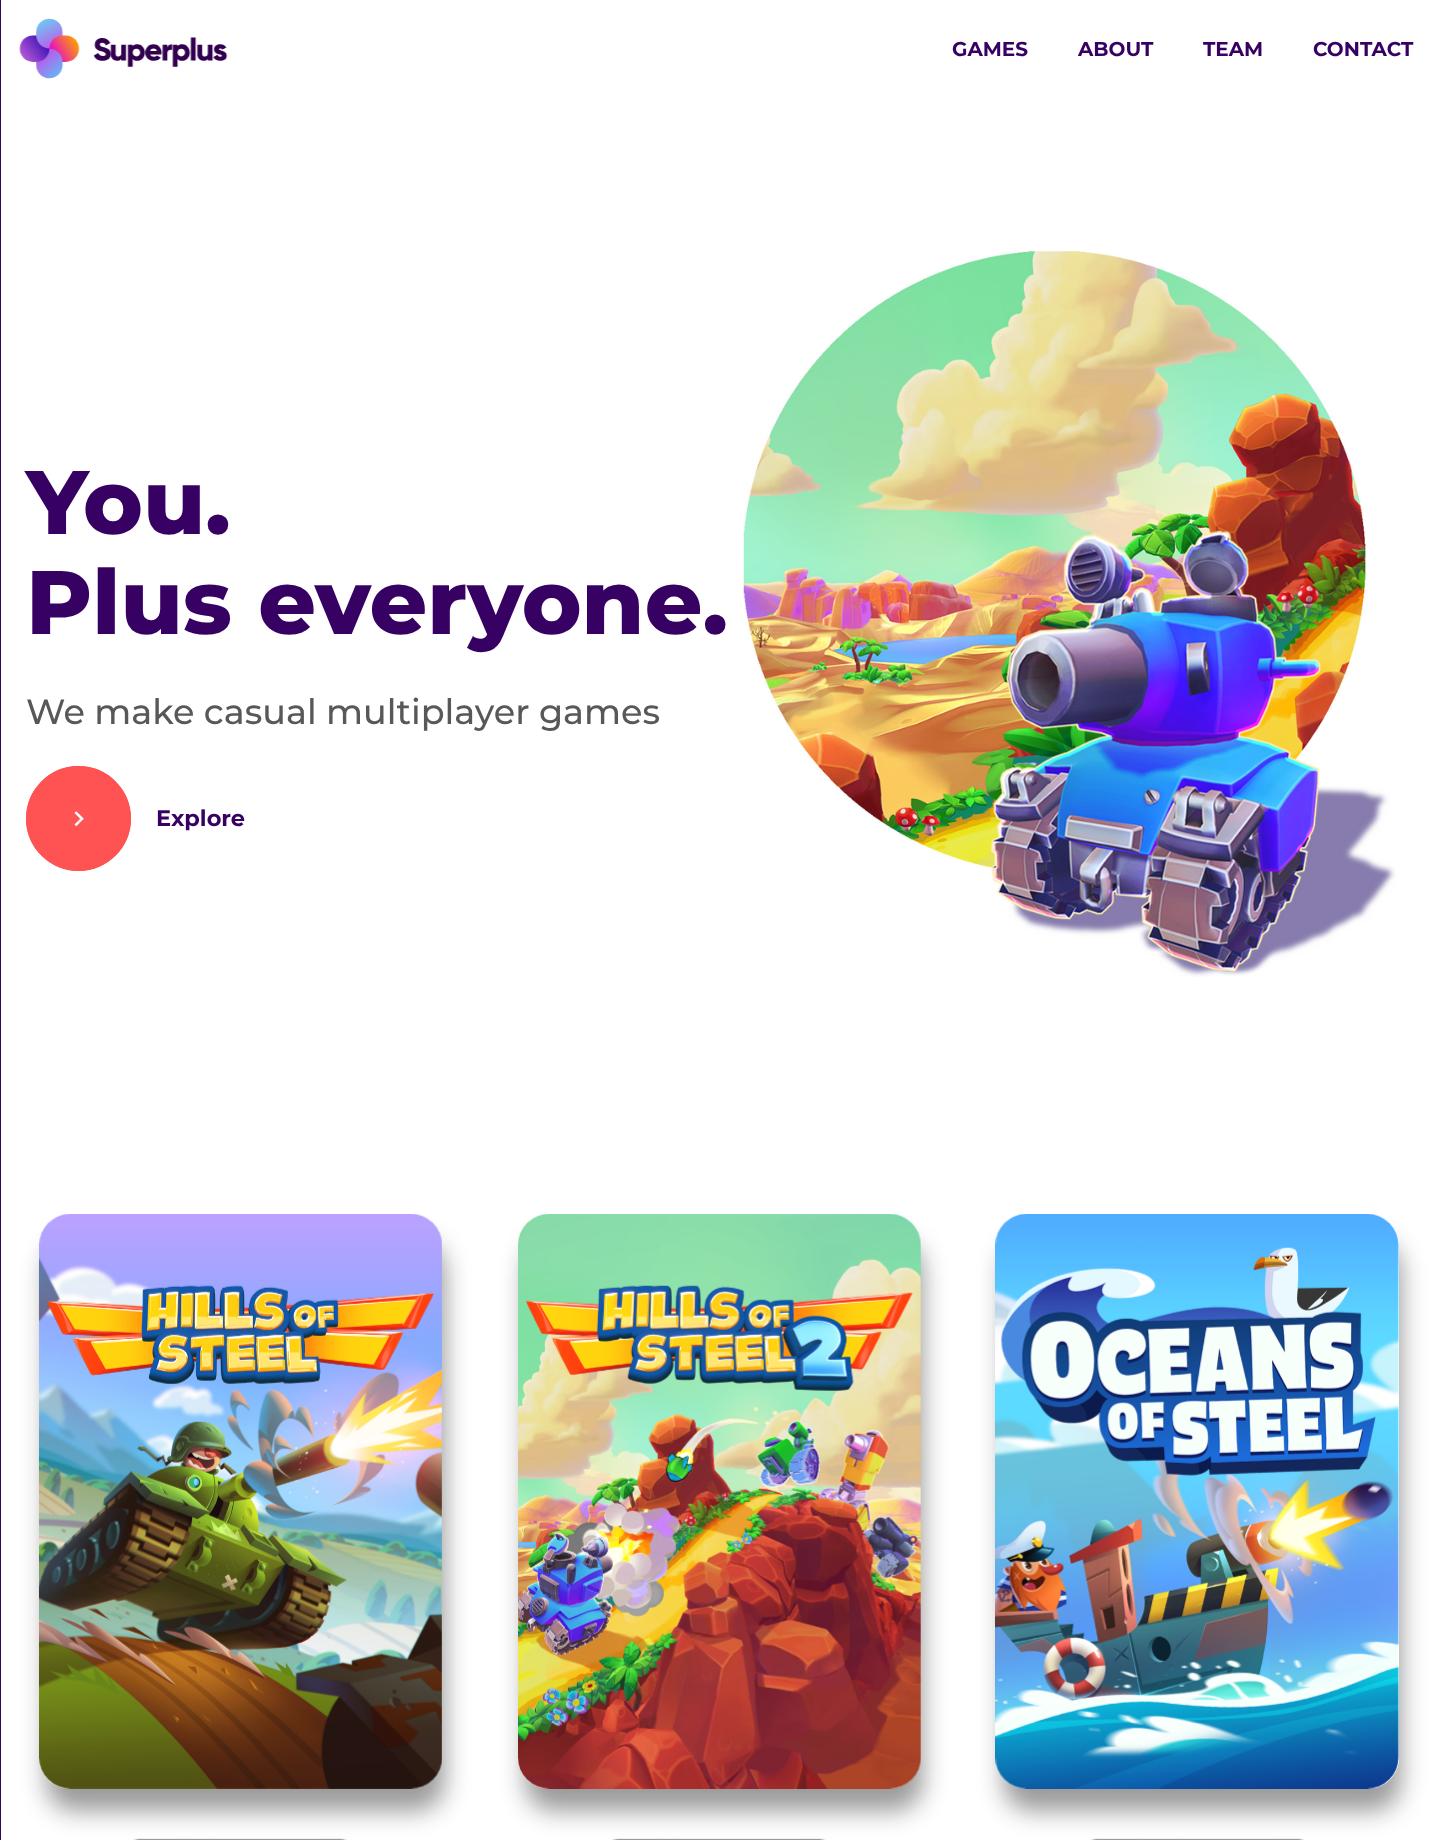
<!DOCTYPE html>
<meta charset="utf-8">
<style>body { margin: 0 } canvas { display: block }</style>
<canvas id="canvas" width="1437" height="1840"></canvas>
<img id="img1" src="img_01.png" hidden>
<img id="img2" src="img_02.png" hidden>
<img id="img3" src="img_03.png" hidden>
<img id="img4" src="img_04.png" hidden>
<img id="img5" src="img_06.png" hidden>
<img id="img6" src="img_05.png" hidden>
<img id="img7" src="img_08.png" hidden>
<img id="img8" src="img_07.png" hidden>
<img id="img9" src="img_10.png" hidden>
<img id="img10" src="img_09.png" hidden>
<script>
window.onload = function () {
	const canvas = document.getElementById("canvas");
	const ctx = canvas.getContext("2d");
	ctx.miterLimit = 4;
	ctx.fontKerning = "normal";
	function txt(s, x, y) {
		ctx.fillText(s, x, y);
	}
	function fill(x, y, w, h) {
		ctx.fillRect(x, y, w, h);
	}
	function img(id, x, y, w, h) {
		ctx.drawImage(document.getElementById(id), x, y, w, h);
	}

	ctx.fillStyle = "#FFFFFF";
	fill(0, 0, 1437, 1840);
	ctx.strokeStyle = "#370163";
	ctx.strokeRect(0.5, 0.5, 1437, 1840);
	fill(1, 0, 1436, 1);
	img("img1", 19, 18, 209, 61);
	ctx.fillStyle = "#FF5454";
	ctx.beginPath();
	ctx.arc(78.5, 818.5, 52.5, 0, Math.PI * 2);
	ctx.fill();
	img("img2", 119, 851, 1, 2);
	ctx.beginPath();
	ctx.arc(78.5, 818.5, 33.5, 0, Math.PI * 2);
	ctx.strokeStyle = "#FF5353";
	ctx.lineWidth = 38;
	ctx.stroke();
	img("img3", 74, 811, 10, 16);
	img("img4", 743, 251, 653, 726);
	img("img5", 133, 1838, 214, 2);
	ctx.save();
	ctx.beginPath();
	ctx.moveTo(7, 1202);
	ctx.lineTo(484, 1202);
	ctx.lineTo(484, 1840);
	ctx.lineTo(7, 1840);
	ctx.closePath();
	ctx.moveTo(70, 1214);
	ctx.lineTo(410, 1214);
	ctx.bezierCurveTo(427, 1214, 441, 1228, 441, 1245);
	ctx.lineTo(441, 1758);
	ctx.bezierCurveTo(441, 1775, 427, 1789, 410, 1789);
	ctx.lineTo(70, 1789);
	ctx.bezierCurveTo(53, 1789, 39, 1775, 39, 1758);
	ctx.lineTo(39, 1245);
	ctx.bezierCurveTo(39, 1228, 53, 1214, 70, 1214);
	ctx.closePath();
	ctx.clip("evenodd");
	ctx.fillStyle = "rgba(10, 10, 10, 0.41)";
	ctx.filter = "blur(12.5px)";
	ctx.beginPath();
	ctx.roundRect(46, 1241, 399, 570, 29);
	ctx.fill();
	ctx.filter = "none";
	ctx.restore();
	img("img6", 39, 1214, 403, 575);
	img("img7", 611, 1838, 215, 2);
	ctx.save();
	ctx.beginPath();
	ctx.moveTo(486, 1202);
	ctx.lineTo(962, 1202);
	ctx.lineTo(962, 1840);
	ctx.lineTo(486, 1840);
	ctx.closePath();
	ctx.moveTo(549, 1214);
	ctx.lineTo(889, 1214);
	ctx.bezierCurveTo(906, 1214, 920, 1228, 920, 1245);
	ctx.lineTo(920, 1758);
	ctx.bezierCurveTo(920, 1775, 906, 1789, 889, 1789);
	ctx.lineTo(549, 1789);
	ctx.bezierCurveTo(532, 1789, 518, 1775, 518, 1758);
	ctx.lineTo(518, 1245);
	ctx.bezierCurveTo(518, 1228, 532, 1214, 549, 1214);
	ctx.closePath();
	ctx.clip("evenodd");
	ctx.fillStyle = "rgba(10, 10, 10, 0.41)";
	ctx.filter = "blur(12.5px)";
	ctx.beginPath();
	ctx.roundRect(525, 1241, 398, 570, 29);
	ctx.fill();
	ctx.filter = "none";
	ctx.restore();
	img("img8", 518, 1214, 403, 575);
	img("img9", 1090, 1838, 215, 2);
	ctx.save();
	ctx.beginPath();
	ctx.moveTo(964, 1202);
	ctx.lineTo(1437, 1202);
	ctx.lineTo(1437, 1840);
	ctx.lineTo(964, 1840);
	ctx.closePath();
	ctx.moveTo(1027, 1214);
	ctx.lineTo(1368, 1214);
	ctx.bezierCurveTo(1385, 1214, 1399, 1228, 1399, 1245);
	ctx.lineTo(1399, 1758);
	ctx.bezierCurveTo(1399, 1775, 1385, 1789, 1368, 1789);
	ctx.lineTo(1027, 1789);
	ctx.bezierCurveTo(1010, 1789, 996, 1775, 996, 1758);
	ctx.lineTo(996, 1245);
	ctx.bezierCurveTo(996, 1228, 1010, 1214, 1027, 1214);
	ctx.closePath();
	ctx.clip("evenodd");
	ctx.fillStyle = "rgba(10, 10, 10, 0.41)";
	ctx.filter = "blur(12.5px)";
	ctx.beginPath();
	ctx.roundRect(1003, 1241, 398, 570, 29);
	ctx.fill();
	ctx.filter = "none";
	ctx.restore();
	img("img10", 995, 1214, 404, 575);
	ctx.font = "bold 20px Montserrat";
	ctx.fillStyle = "#370163";
	txt("GAMES", 952, 56);
	txt("ABOUT", 1078, 56);
	txt("TEAM", 1203, 56);
	txt("CONTACT", 1313, 56);
	ctx.font = "800 90px Montserrat";
	txt("You.", 26, 534);
	txt("Plus everyone.", 26, 634);
	ctx.font = "500 35px Montserrat";
	ctx.fillStyle = "#585858";
	txt("We make casual multiplayer games", 26, 724);
	ctx.font = "bold 22.5px Montserrat";
	ctx.fillStyle = "#370163";
	txt("Explore", 156, 826);
};
</script>
